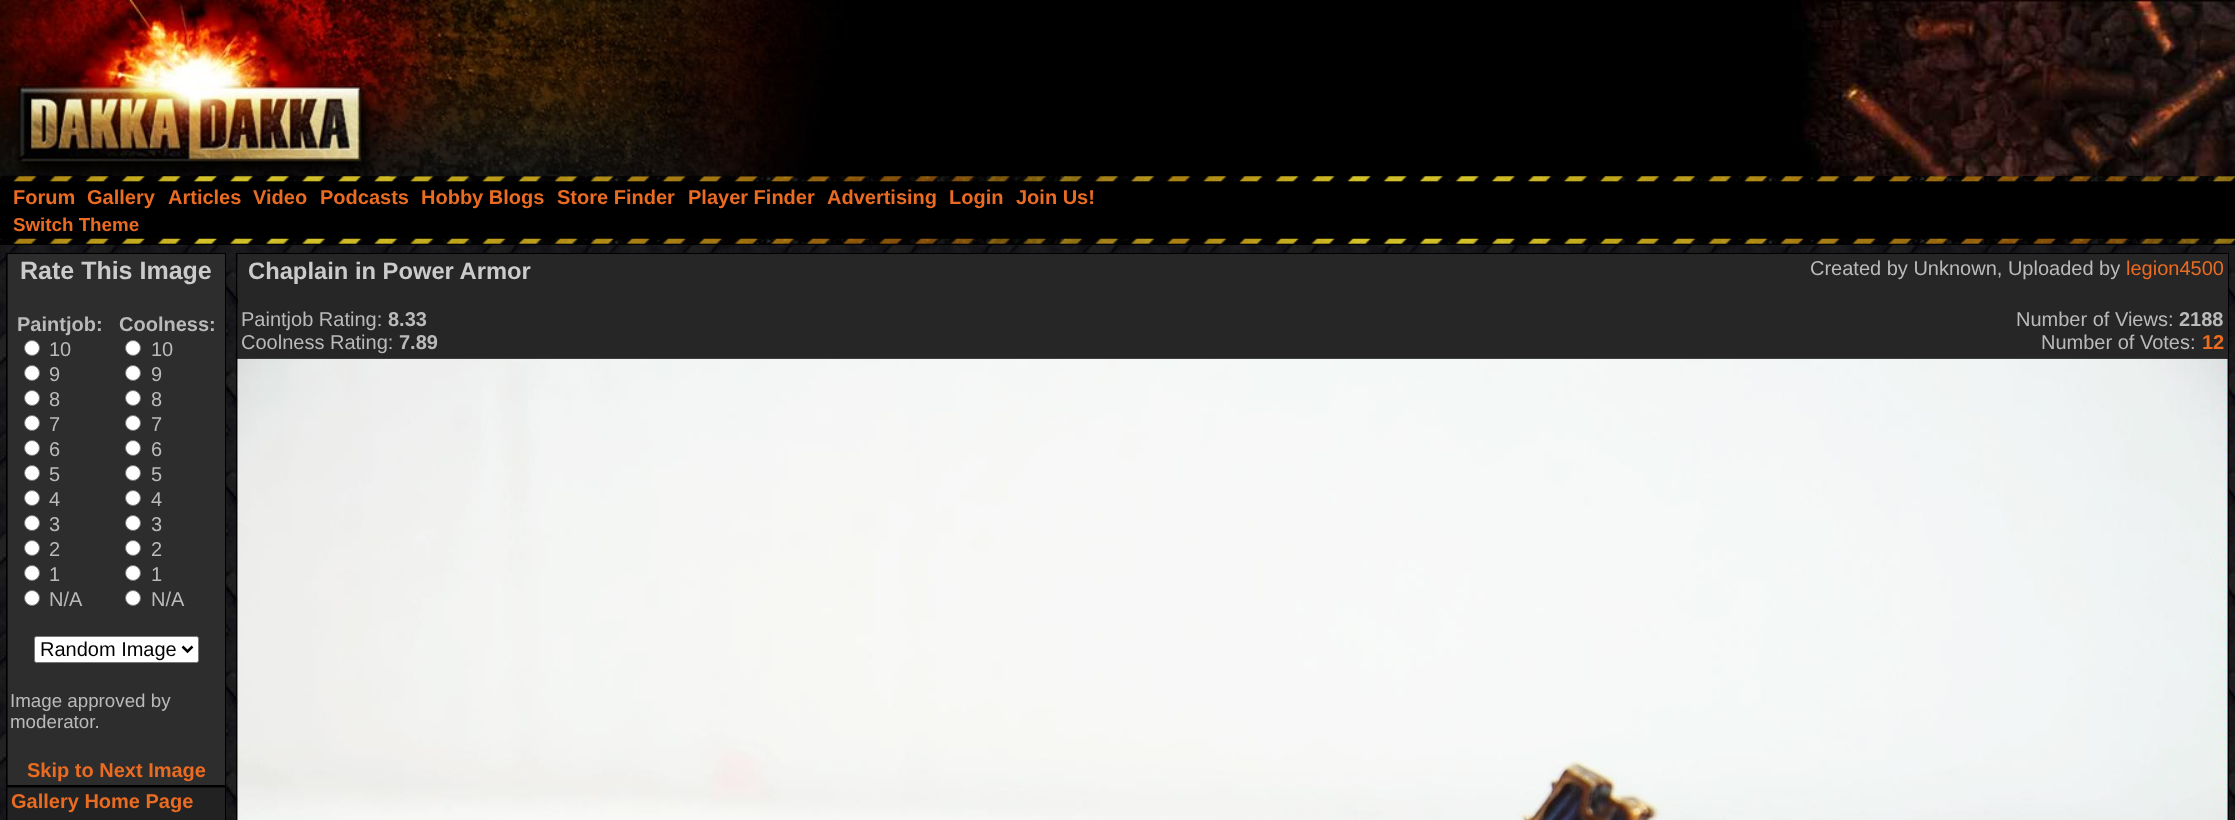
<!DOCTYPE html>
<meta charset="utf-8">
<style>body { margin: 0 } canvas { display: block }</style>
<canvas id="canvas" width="2235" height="820"></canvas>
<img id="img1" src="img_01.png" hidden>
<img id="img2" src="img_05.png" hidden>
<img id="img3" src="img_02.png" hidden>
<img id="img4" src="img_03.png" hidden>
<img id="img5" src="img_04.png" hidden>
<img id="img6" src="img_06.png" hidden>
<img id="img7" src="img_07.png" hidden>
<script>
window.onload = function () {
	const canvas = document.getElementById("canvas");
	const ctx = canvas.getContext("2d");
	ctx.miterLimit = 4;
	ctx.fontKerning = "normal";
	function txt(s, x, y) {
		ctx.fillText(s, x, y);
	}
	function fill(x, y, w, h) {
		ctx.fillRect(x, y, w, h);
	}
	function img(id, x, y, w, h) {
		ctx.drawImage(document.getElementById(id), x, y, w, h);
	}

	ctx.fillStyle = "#FFFFFF";
	fill(0, 0, 2235, 820);
	img("img1", 0, 245, 2235, 575);
	ctx.fillStyle = "#000000";
	fill(869, 0, 923, 176);
	fill(0, 176, 2235, 63);
	img("img2", 0, 176, 2235, 6);
	img("img3", 390, 0, 479, 177);
	img("img4", 0, 0, 390, 176);
	img("img5", 1791, 0, 444, 177);
	fill(0, 244, 2235, 1);
	img("img6", 0, 238, 2235, 6);
	ctx.fillStyle = "#111111";
	fill(7, 254, 1, 531);
	ctx.strokeStyle = "#000000";
	ctx.strokeRect(6.5, 253.5, 219, 532);
	ctx.fillStyle = "#2D2D2D";
	fill(8, 254, 217, 531);
	ctx.fillStyle = "#FFFFFF";
	ctx.beginPath();
	ctx.arc(32, 348, 7.5, 0, Math.PI * 2);
	ctx.fill();
	ctx.strokeStyle = "#767676";
	ctx.stroke();
	ctx.beginPath();
	ctx.arc(32, 373, 7.5, 0, Math.PI * 2);
	ctx.fill();
	ctx.stroke();
	ctx.beginPath();
	ctx.arc(32, 398, 7.5, 0, Math.PI * 2);
	ctx.fill();
	ctx.stroke();
	ctx.beginPath();
	ctx.arc(32, 423, 7.5, 0, Math.PI * 2);
	ctx.fill();
	ctx.stroke();
	ctx.beginPath();
	ctx.arc(32, 448, 7.5, 0, Math.PI * 2);
	ctx.fill();
	ctx.stroke();
	ctx.beginPath();
	ctx.arc(32, 473, 7.5, 0, Math.PI * 2);
	ctx.fill();
	ctx.stroke();
	ctx.beginPath();
	ctx.arc(32, 498, 7.5, 0, Math.PI * 2);
	ctx.fill();
	ctx.stroke();
	ctx.beginPath();
	ctx.arc(32, 523, 7.5, 0, Math.PI * 2);
	ctx.fill();
	ctx.stroke();
	ctx.beginPath();
	ctx.arc(32, 548, 7.5, 0, Math.PI * 2);
	ctx.fill();
	ctx.stroke();
	ctx.beginPath();
	ctx.arc(32, 573, 7.5, 0, Math.PI * 2);
	ctx.fill();
	ctx.stroke();
	ctx.beginPath();
	ctx.arc(32, 598, 7.5, 0, Math.PI * 2);
	ctx.fill();
	ctx.stroke();
	ctx.beginPath();
	ctx.arc(133, 348, 7.5, 0, Math.PI * 2);
	ctx.fill();
	ctx.stroke();
	ctx.beginPath();
	ctx.arc(133, 373, 7.5, 0, Math.PI * 2);
	ctx.fill();
	ctx.stroke();
	ctx.beginPath();
	ctx.arc(133, 398, 7.5, 0, Math.PI * 2);
	ctx.fill();
	ctx.stroke();
	ctx.beginPath();
	ctx.arc(133, 423, 7.5, 0, Math.PI * 2);
	ctx.fill();
	ctx.stroke();
	ctx.beginPath();
	ctx.arc(133, 448, 7.5, 0, Math.PI * 2);
	ctx.fill();
	ctx.stroke();
	ctx.beginPath();
	ctx.arc(133, 473, 7.5, 0, Math.PI * 2);
	ctx.fill();
	ctx.stroke();
	ctx.beginPath();
	ctx.arc(133, 498, 7.5, 0, Math.PI * 2);
	ctx.fill();
	ctx.stroke();
	ctx.beginPath();
	ctx.arc(133, 523, 7.5, 0, Math.PI * 2);
	ctx.fill();
	ctx.stroke();
	ctx.beginPath();
	ctx.arc(133, 548, 7.5, 0, Math.PI * 2);
	ctx.fill();
	ctx.stroke();
	ctx.beginPath();
	ctx.arc(133, 573, 7.5, 0, Math.PI * 2);
	ctx.fill();
	ctx.stroke();
	ctx.beginPath();
	ctx.arc(133, 598, 7.5, 0, Math.PI * 2);
	ctx.fill();
	ctx.stroke();
	ctx.beginPath();
	ctx.roundRect(34.5, 636.5, 164, 26, 2);
	ctx.fill();
	ctx.stroke();
	ctx.beginPath();
	ctx.moveTo(182.5, 646.5);
	ctx.lineTo(187.5, 651.5);
	ctx.lineTo(192.5, 646.5);
	ctx.strokeStyle = "#000000";
	ctx.lineWidth = 2.5;
	ctx.stroke();
	ctx.fillStyle = "#111111";
	ctx.beginPath();
	ctx.rect(6.5, 786.5, 219, 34);
	ctx.fill();
	ctx.lineWidth = 1;
	ctx.stroke();
	ctx.fillStyle = "#222222";
	fill(8, 788, 217, 32);
	ctx.strokeRect(236.5, 253.5, 1992, 105);
	ctx.fillStyle = "#262626";
	fill(238, 254, 1990, 104);
	ctx.fillStyle = "#000000";
	fill(2228, 359, 1, 461);
	fill(236, 359, 1, 461);
	ctx.fillStyle = "#222222";
	fill(2227, 359, 1, 461);
	img("img7", 237, 358, 1991, 462);
	ctx.font = "bold 20px Liberation Sans";
	ctx.fillStyle = "#EA6C22";
	txt("Forum", 13, 204);
	txt("Gallery", 87, 204);
	txt("Articles", 168, 204);
	txt("Video", 253, 204);
	txt("Podcasts", 320, 204);
	txt("Hobby Blogs", 421, 204);
	txt("Store Finder", 557, 204);
	txt("Player Finder", 688, 204);
	txt("Advertising", 827, 204);
	txt("Login", 949, 204);
	txt("Join Us!", 1016, 204);
	ctx.font = "bold 18.75px Liberation Sans";
	txt("Switch Theme", 13, 231);
	ctx.font = "bold 25px Liberation Sans";
	ctx.fillStyle = "#CBCBCB";
	txt("Rate This Image", 20, 279);
	ctx.font = "bold 20px Liberation Sans";
	ctx.fillStyle = "#BABABA";
	txt("Paintjob:", 17, 331);
	ctx.font = "20px Liberation Sans";
	txt("10", 49, 356);
	txt("9", 49, 381);
	txt("8", 49, 406);
	txt("7", 49, 431);
	txt("6", 49, 456);
	txt("5", 49, 481);
	txt("4", 49, 506);
	txt("3", 49, 531);
	txt("2", 49, 556);
	txt("1", 49, 581);
	txt("N/A", 49, 606);
	ctx.font = "bold 20px Liberation Sans";
	txt("Coolness:", 119, 331);
	ctx.font = "20px Liberation Sans";
	txt("10", 151, 356);
	txt("9", 151, 381);
	txt("8", 151, 406);
	txt("7", 151, 431);
	txt("6", 151, 456);
	txt("5", 151, 481);
	txt("4", 151, 506);
	txt("3", 151, 531);
	txt("2", 151, 556);
	txt("1", 151, 581);
	txt("N/A", 151, 606);
	ctx.fillStyle = "#000000";
	txt("Random Image", 40, 656);
	ctx.font = "18.75px Liberation Sans";
	ctx.fillStyle = "#BABABA";
	txt("Image approved by", 10, 707);
	txt("moderator.", 10, 728);
	ctx.font = "bold 20px Liberation Sans";
	ctx.fillStyle = "#EA6C22";
	txt("Skip to Next Image", 27, 777);
	txt("Gallery Home Page", 11, 808);
	ctx.font = "bold 23.75px Liberation Sans";
	ctx.fillStyle = "#CBCBCB";
	txt("Chaplain in Power Armor", 248, 279);
	ctx.font = "20px Liberation Sans";
	ctx.fillStyle = "#BABABA";
	txt("Created by Unknown, Uploaded by", 1810, 275);
	ctx.fillStyle = "#EA6C22";
	txt("legion4500", 2126, 275);
	ctx.fillStyle = "#BABABA";
	txt("Paintjob Rating:", 241, 326);
	ctx.font = "bold 20px Liberation Sans";
	txt("8.33", 388, 326);
	ctx.font = "20px Liberation Sans";
	txt("Number of Views:", 2016, 326);
	ctx.font = "bold 20px Liberation Sans";
	txt("2188", 2179, 326);
	ctx.font = "20px Liberation Sans";
	txt("Coolness Rating:", 241, 349);
	ctx.font = "bold 20px Liberation Sans";
	txt("7.89", 399, 349);
	ctx.font = "20px Liberation Sans";
	txt("Number of Votes:", 2041, 349);
	ctx.font = "bold 20px Liberation Sans";
	ctx.fillStyle = "#EA6C22";
	txt("12", 2202, 349);
};
</script>
